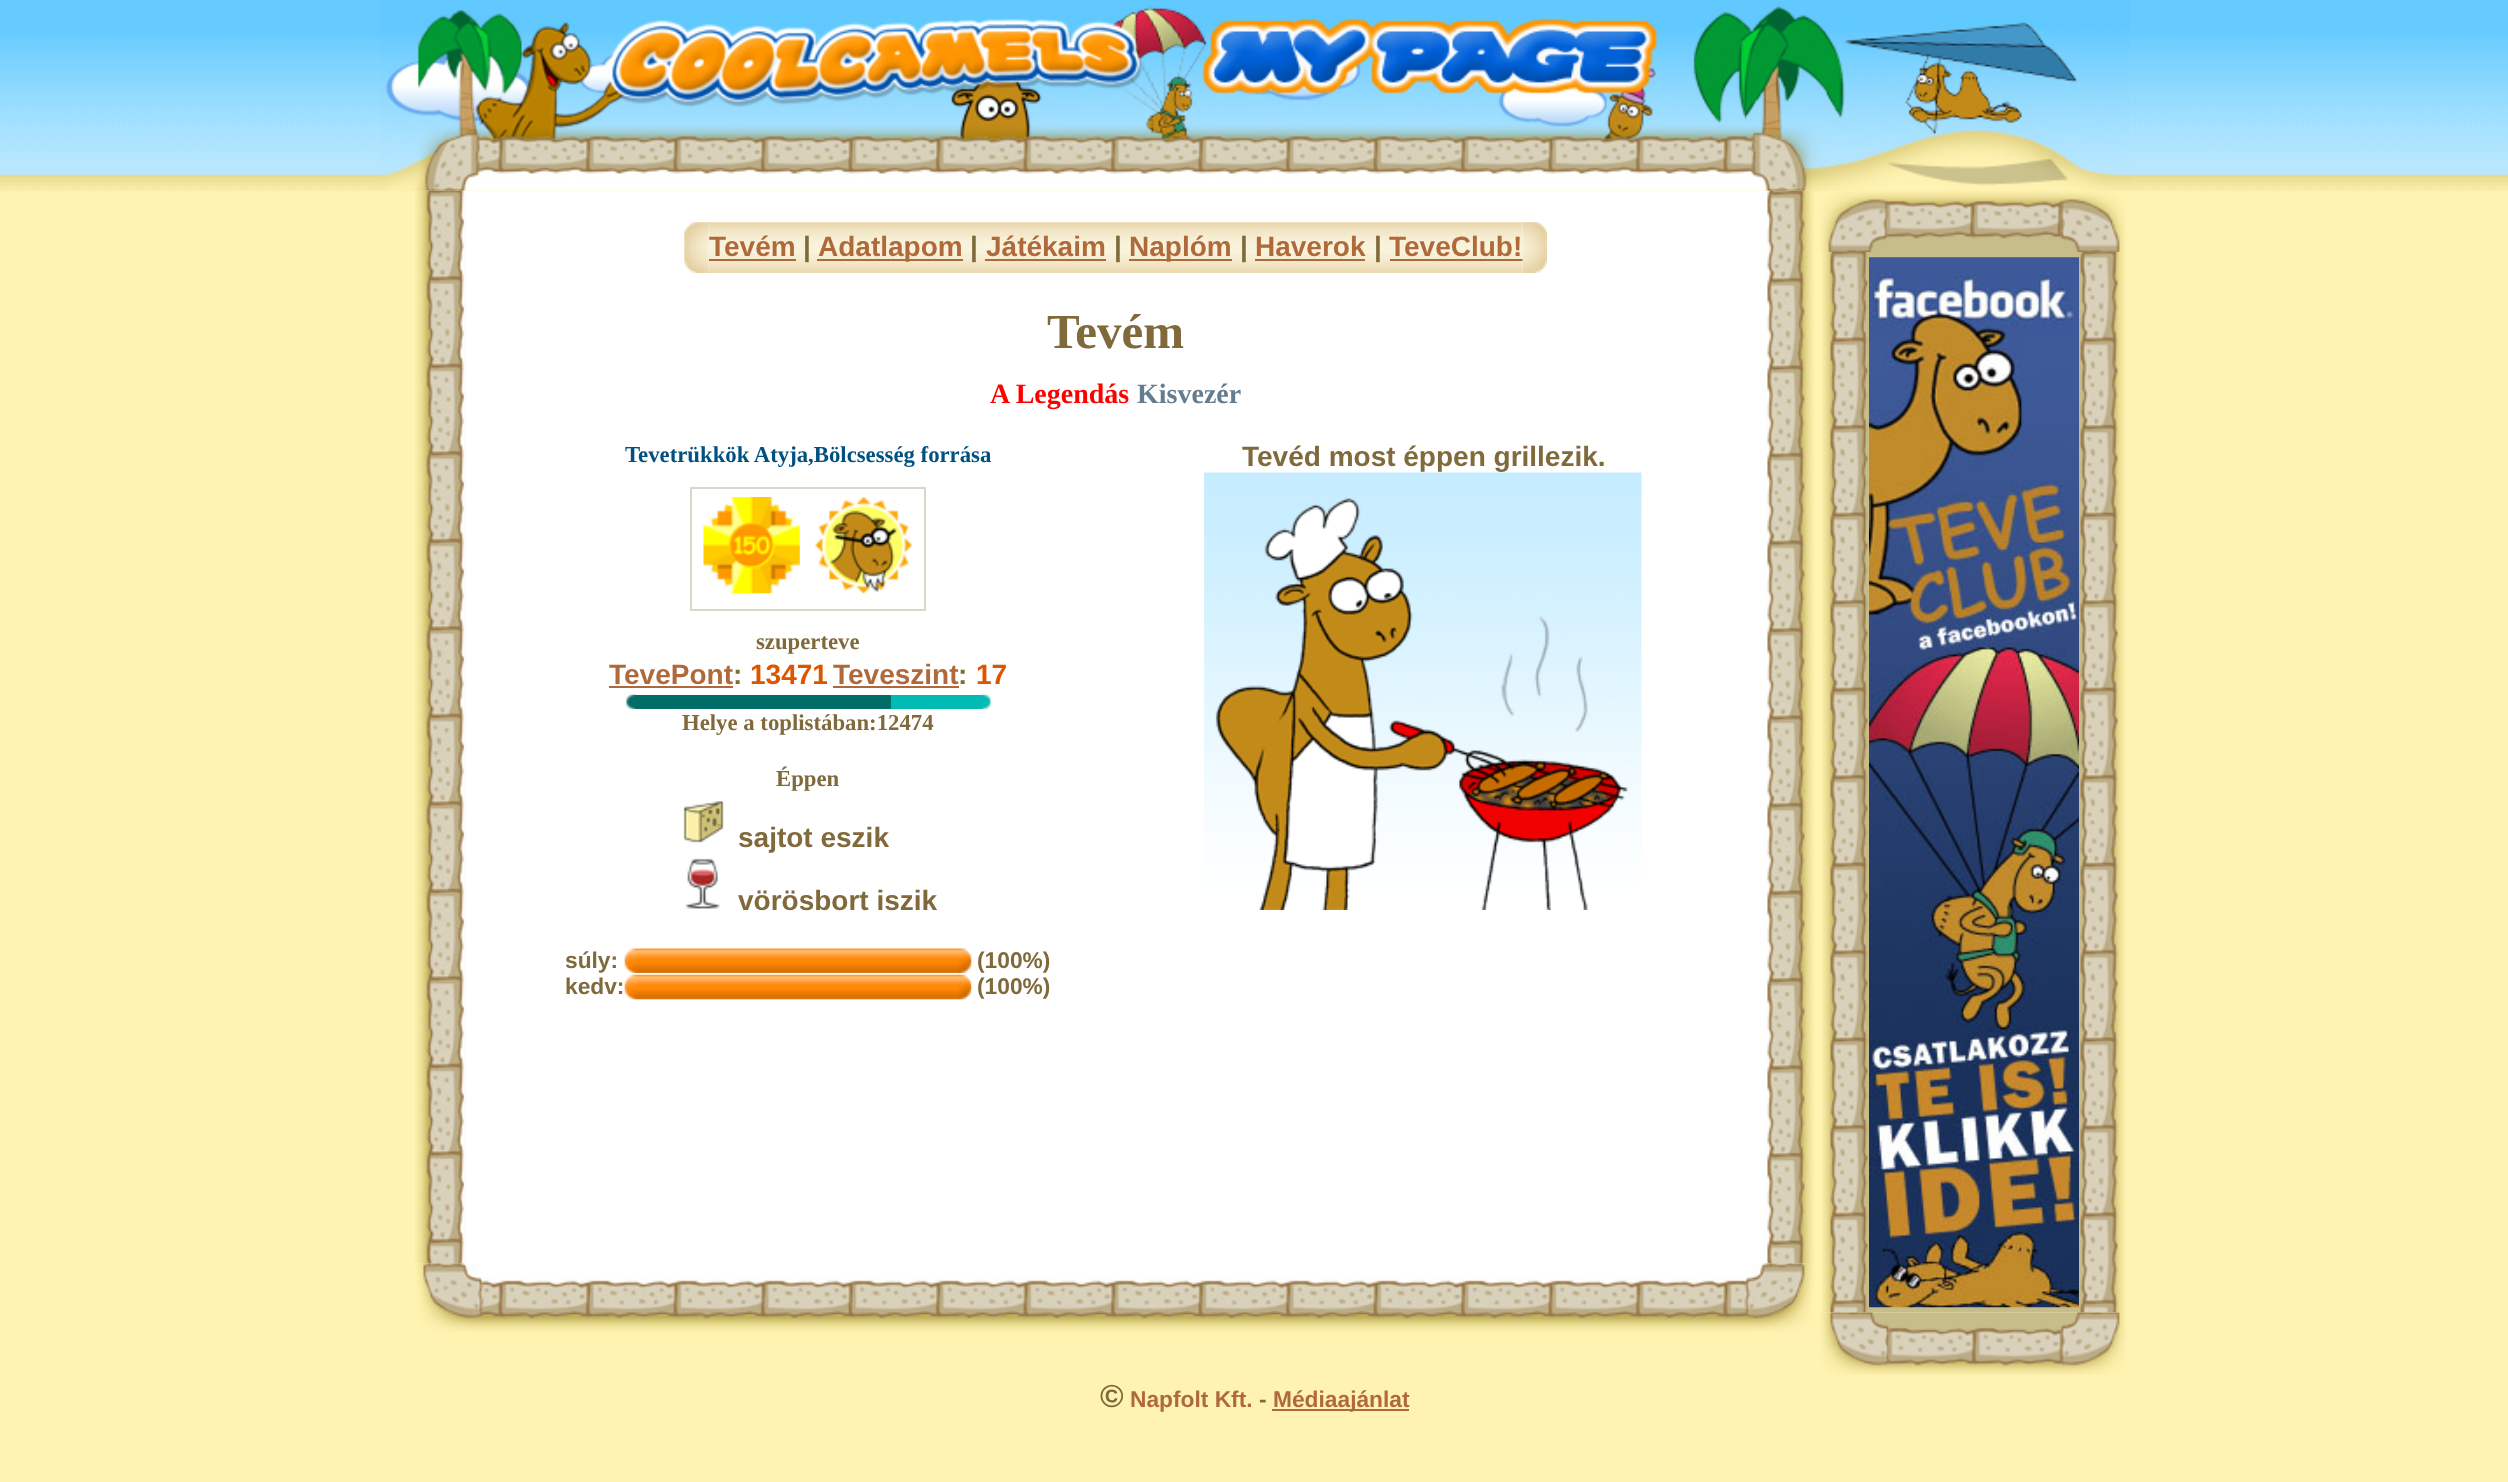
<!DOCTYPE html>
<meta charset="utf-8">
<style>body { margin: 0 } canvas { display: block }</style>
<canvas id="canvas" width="2508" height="1482"></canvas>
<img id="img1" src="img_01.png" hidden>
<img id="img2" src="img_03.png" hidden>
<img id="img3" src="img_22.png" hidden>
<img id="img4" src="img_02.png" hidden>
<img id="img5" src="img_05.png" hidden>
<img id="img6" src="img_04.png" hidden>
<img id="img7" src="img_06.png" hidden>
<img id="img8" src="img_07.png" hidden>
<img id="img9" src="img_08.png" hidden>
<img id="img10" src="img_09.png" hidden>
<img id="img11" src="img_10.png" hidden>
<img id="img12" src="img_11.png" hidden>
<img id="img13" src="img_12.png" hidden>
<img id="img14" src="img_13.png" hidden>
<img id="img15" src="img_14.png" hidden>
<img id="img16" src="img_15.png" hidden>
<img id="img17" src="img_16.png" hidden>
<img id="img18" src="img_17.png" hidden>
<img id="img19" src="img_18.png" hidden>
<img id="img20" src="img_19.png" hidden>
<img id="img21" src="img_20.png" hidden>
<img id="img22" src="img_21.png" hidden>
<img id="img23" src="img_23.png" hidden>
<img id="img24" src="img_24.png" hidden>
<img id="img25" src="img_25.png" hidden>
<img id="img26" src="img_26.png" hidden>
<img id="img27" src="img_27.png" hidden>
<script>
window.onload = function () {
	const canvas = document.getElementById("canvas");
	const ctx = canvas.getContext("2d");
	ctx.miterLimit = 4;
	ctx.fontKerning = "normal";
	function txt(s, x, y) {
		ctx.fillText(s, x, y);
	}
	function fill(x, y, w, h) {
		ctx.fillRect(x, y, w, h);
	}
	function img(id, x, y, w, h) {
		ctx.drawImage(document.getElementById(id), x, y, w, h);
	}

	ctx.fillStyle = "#FFF3B1";
	fill(0, 0, 2508, 1482);
	img("img1", 0, 0, 2508, 191);
	img("img2", 415, 190, 51, 1074);
	ctx.fillStyle = "#FFFFFF";
	fill(466, 191, 1300, 1073);
	img("img3", 1765, 190, 49, 1074);
	img("img4", 380, 0, 1750, 191);
	img("img5", 708, 222, 815, 51);
	img("img6", 684, 222, 25, 51);
	ctx.fillStyle = "#B0693A";
	fill(709, 259, 87, 2);
	fill(817, 259, 146, 2);
	fill(985, 259, 121, 2);
	fill(1129, 259, 103, 2);
	fill(1255, 259, 110, 2);
	fill(1390, 259, 133, 2);
	img("img7", 1522, 222, 25, 51);
	ctx.strokeStyle = "#D9D6CC";
	ctx.lineWidth = 2;
	ctx.strokeRect(691, 488, 234, 122);
	img("img8", 703, 497, 97, 97);
	img("img9", 815, 497, 97, 97);
	fill(609, 686, 124, 2);
	fill(833, 686, 126, 2);
	ctx.fillStyle = "#006D69";
	fill(635, 695, 256, 14);
	img("img10", 626, 694, 10, 15);
	ctx.fillStyle = "#00BBB4";
	fill(891, 695, 91, 14);
	img("img11", 981, 694, 10, 15);
	img("img12", 683, 801, 41, 42);
	img("img13", 685, 858, 35, 51);
	img("img14", 624, 948, 348, 25);
	img("img15", 624, 948, 13, 25);
	img("img16", 637, 948, 322, 25);
	img("img17", 959, 948, 13, 25);
	img("img18", 624, 974, 348, 26);
	img("img19", 624, 974, 13, 26);
	img("img20", 637, 974, 322, 26);
	img("img21", 959, 974, 13, 26);
	img("img22", 1204, 472, 438, 438);
	img("img23", 1820, 191, 306, 61);
	img("img24", 1822, 252, 303, 1061);
	img("img25", 1869, 257, 210, 1051);
	img("img26", 1820, 1312, 306, 63);
	img("img27", 416, 1263, 1398, 70);
	ctx.fillStyle = "#B0693A";
	fill(1272, 1409, 137, 2);
	ctx.font = "bold 28px Liberation Sans";
	txt("Tevém", 709, 256);
	ctx.fillStyle = "#80693A";
	txt("|", 803, 256);
	ctx.fillStyle = "#B0693A";
	txt("Adatlapom", 818, 256);
	ctx.fillStyle = "#80693A";
	txt("|", 970, 256);
	ctx.fillStyle = "#B0693A";
	txt("Játékaim", 986, 256);
	ctx.fillStyle = "#80693A";
	txt("|", 1114, 256);
	ctx.fillStyle = "#B0693A";
	txt("Naplóm", 1129, 256);
	ctx.fillStyle = "#80693A";
	txt("|", 1240, 256);
	ctx.fillStyle = "#B0693A";
	txt("Haverok", 1255, 256);
	ctx.fillStyle = "#80693A";
	txt("|", 1374, 256);
	ctx.fillStyle = "#B0693A";
	txt("TeveClub!", 1389, 256);
	ctx.font = "bold 49px Liberation Serif";
	ctx.fillStyle = "#80693A";
	txt("Tevém", 1047, 348);
	ctx.font = "bold 28px Liberation Serif";
	ctx.fillStyle = "#FF0000";
	txt("A Legendás", 990, 403);
	ctx.fillStyle = "#657C8E";
	txt("Kisvezér", 1137, 403);
	ctx.font = "bold 22.75px Liberation Serif";
	ctx.fillStyle = "#005080";
	txt("Tevetrükkök Atyja,Bölcsesség forrása", 625, 462);
	ctx.fillStyle = "#80693A";
	txt("szuperteve", 756, 649);
	ctx.font = "bold 28px Liberation Sans";
	ctx.fillStyle = "#B0693A";
	txt("TevePont", 609, 684);
	ctx.fillStyle = "#80693A";
	txt(":", 733, 684);
	ctx.fillStyle = "#DE5500";
	txt("13471", 750, 684);
	ctx.fillStyle = "#B0693A";
	txt("Teveszint", 833, 684);
	ctx.fillStyle = "#80693A";
	txt(":", 958, 684);
	ctx.fillStyle = "#DE5500";
	txt("17", 976, 684);
	ctx.font = "bold 22.75px Liberation Serif";
	ctx.fillStyle = "#80693A";
	txt("Helye a toplistában:12474", 682, 730);
	txt("Éppen", 776, 786);
	ctx.font = "bold 28px Liberation Sans";
	txt("sajtot eszik", 738, 847);
	txt("vörösbort iszik", 738, 910);
	ctx.font = "bold 22.75px Liberation Sans";
	txt("súly:", 565, 968);
	txt("(100%)", 977, 968);
	txt("kedv:", 565, 994);
	txt("(100%)", 977, 994);
	ctx.font = "bold 28px Liberation Sans";
	txt("Tevéd most éppen grillezik.", 1242, 466);
	ctx.font = "bold 32px Liberation Sans";
	txt("©", 1100, 1407);
	ctx.font = "bold 22.75px Liberation Sans";
	ctx.fillStyle = "#B0693A";
	txt("Napfolt Kft.", 1130, 1407);
	ctx.fillStyle = "#80693A";
	txt("-", 1259, 1407);
	ctx.fillStyle = "#B0693A";
	txt("Médiaajánlat", 1273, 1407);
};
</script>
